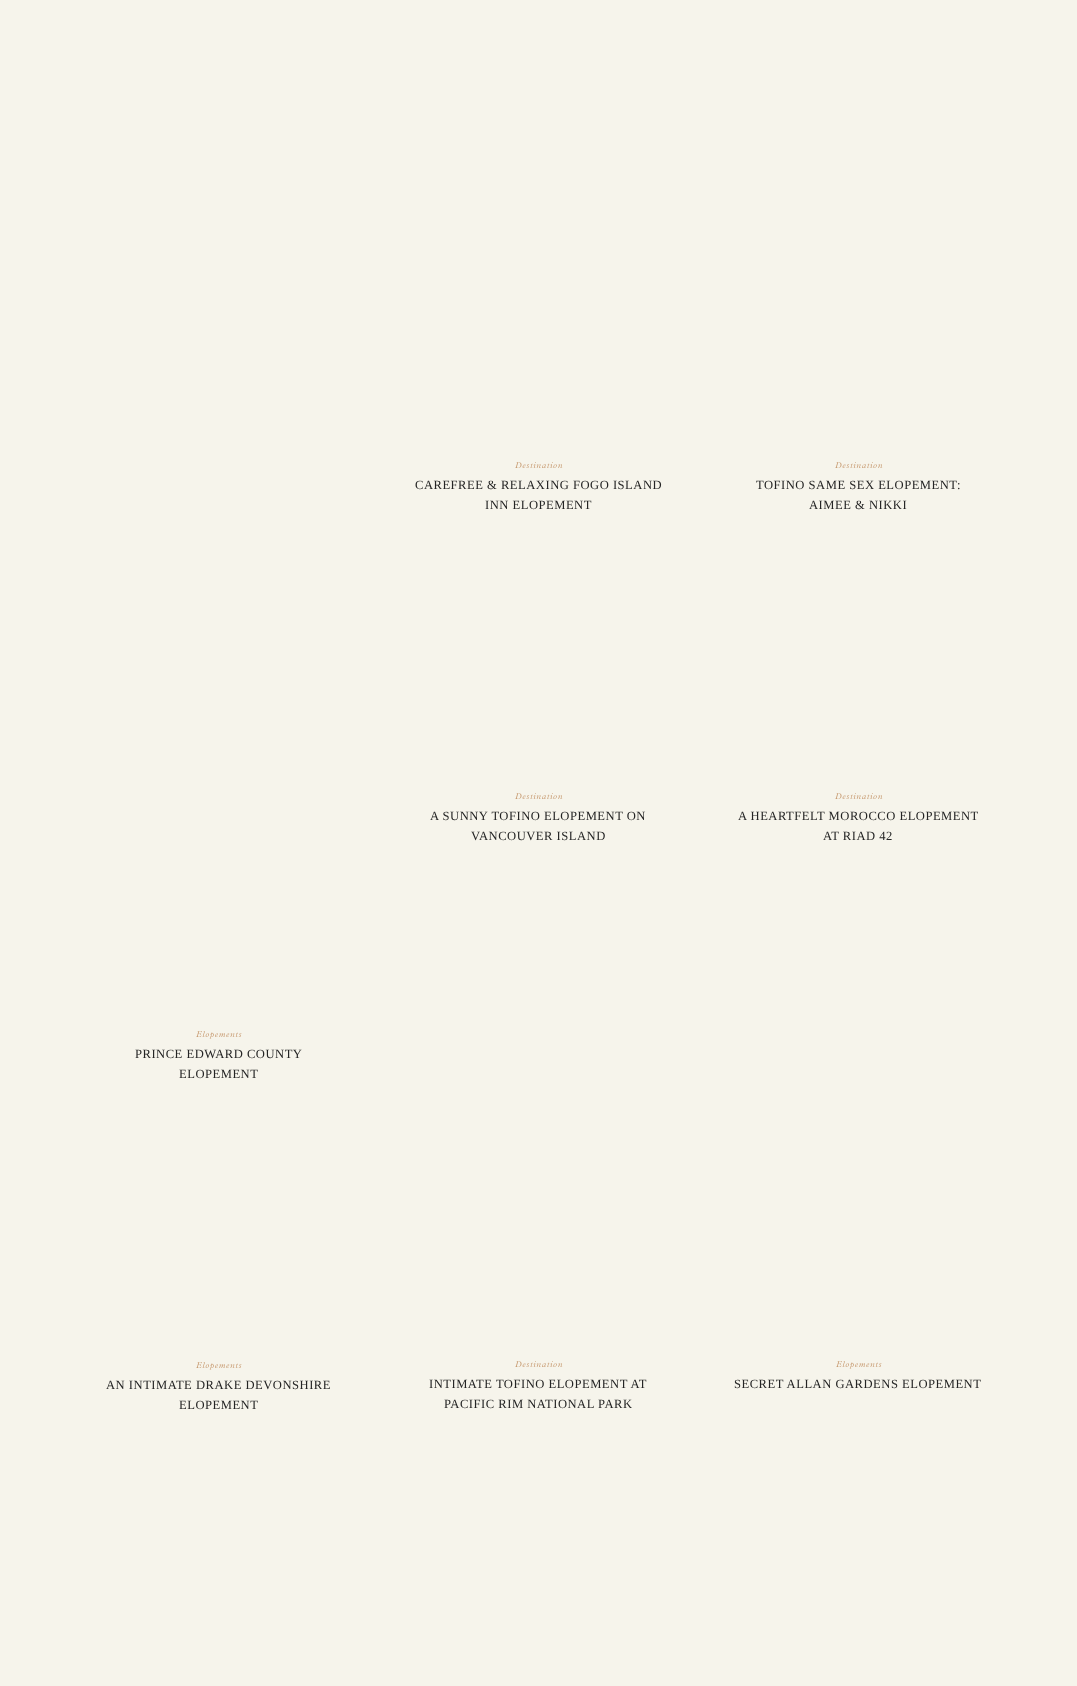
<!DOCTYPE html>
<meta charset="utf-8">
<style>body { margin: 0 } canvas { display: block }</style>
<canvas id="canvas" width="1077" height="1686"></canvas>
<script>
window.onload = function () {
	const canvas = document.getElementById("canvas");
	const ctx = canvas.getContext("2d");
	ctx.miterLimit = 4;
	ctx.fontKerning = "normal";
	function txt(s, x, y) {
		ctx.fillText(s, x, y);
	}
	function fill(x, y, w, h) {
		ctx.fillRect(x, y, w, h);
	}

	ctx.fillStyle = "#F6F4EB";
	fill(0, 0, 1077, 1686);
	ctx.letterSpacing = "0.75px";
	ctx.font = "italic 300 8.5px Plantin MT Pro";
	ctx.fillStyle = "#C5966B";
	txt("Destination", 515, 468);
	ctx.letterSpacing = "0.5px";
	ctx.font = "12.6px Liberation Serif";
	ctx.fillStyle = "#242424";
	txt("CAREFREE & RELAXING FOGO ISLAND", 415, 489);
	txt("INN ELOPEMENT", 485, 509);
	ctx.letterSpacing = "0.75px";
	ctx.font = "italic 300 8.5px Plantin MT Pro";
	ctx.fillStyle = "#C5966B";
	txt("Destination", 835, 468);
	ctx.letterSpacing = "0.5px";
	ctx.font = "12.6px Liberation Serif";
	ctx.fillStyle = "#242424";
	txt("TOFINO SAME SEX ELOPEMENT:", 756, 489);
	txt("AIMEE & NIKKI", 809, 509);
	ctx.letterSpacing = "0.75px";
	ctx.font = "italic 300 8.5px Plantin MT Pro";
	ctx.fillStyle = "#C5966B";
	txt("Destination", 515, 799);
	ctx.letterSpacing = "0.5px";
	ctx.font = "12.6px Liberation Serif";
	ctx.fillStyle = "#242424";
	txt("A SUNNY TOFINO ELOPEMENT ON", 430, 820);
	txt("VANCOUVER ISLAND", 471, 840);
	ctx.letterSpacing = "0.75px";
	ctx.font = "italic 300 8.5px Plantin MT Pro";
	ctx.fillStyle = "#C5966B";
	txt("Destination", 835, 799);
	ctx.letterSpacing = "0.5px";
	ctx.font = "12.6px Liberation Serif";
	ctx.fillStyle = "#242424";
	txt("A HEARTFELT MOROCCO ELOPEMENT", 738, 820);
	txt("AT RIAD 42", 823, 840);
	ctx.letterSpacing = "0.75px";
	ctx.font = "italic 300 8.5px Plantin MT Pro";
	ctx.fillStyle = "#C5966B";
	txt("Elopements", 196, 1037);
	ctx.letterSpacing = "0.5px";
	ctx.font = "12.6px Liberation Serif";
	ctx.fillStyle = "#242424";
	txt("PRINCE EDWARD COUNTY", 135, 1058);
	txt("ELOPEMENT", 179, 1078);
	ctx.letterSpacing = "0.75px";
	ctx.font = "italic 300 8.5px Plantin MT Pro";
	ctx.fillStyle = "#C5966B";
	txt("Elopements", 196, 1368);
	ctx.letterSpacing = "0.5px";
	ctx.font = "12.6px Liberation Serif";
	ctx.fillStyle = "#242424";
	txt("AN INTIMATE DRAKE DEVONSHIRE", 106, 1389);
	txt("ELOPEMENT", 179, 1409);
	ctx.letterSpacing = "0.75px";
	ctx.font = "italic 300 8.5px Plantin MT Pro";
	ctx.fillStyle = "#C5966B";
	txt("Destination", 515, 1367);
	ctx.letterSpacing = "0.5px";
	ctx.font = "12.6px Liberation Serif";
	ctx.fillStyle = "#242424";
	txt("INTIMATE TOFINO ELOPEMENT AT", 429, 1388);
	txt("PACIFIC RIM NATIONAL PARK", 444, 1408);
	ctx.letterSpacing = "0.75px";
	ctx.font = "italic 300 8.5px Plantin MT Pro";
	ctx.fillStyle = "#C5966B";
	txt("Elopements", 836, 1367);
	ctx.letterSpacing = "0.5px";
	ctx.font = "12.6px Liberation Serif";
	ctx.fillStyle = "#242424";
	txt("SECRET ALLAN GARDENS ELOPEMENT", 734, 1388);
};
</script>
